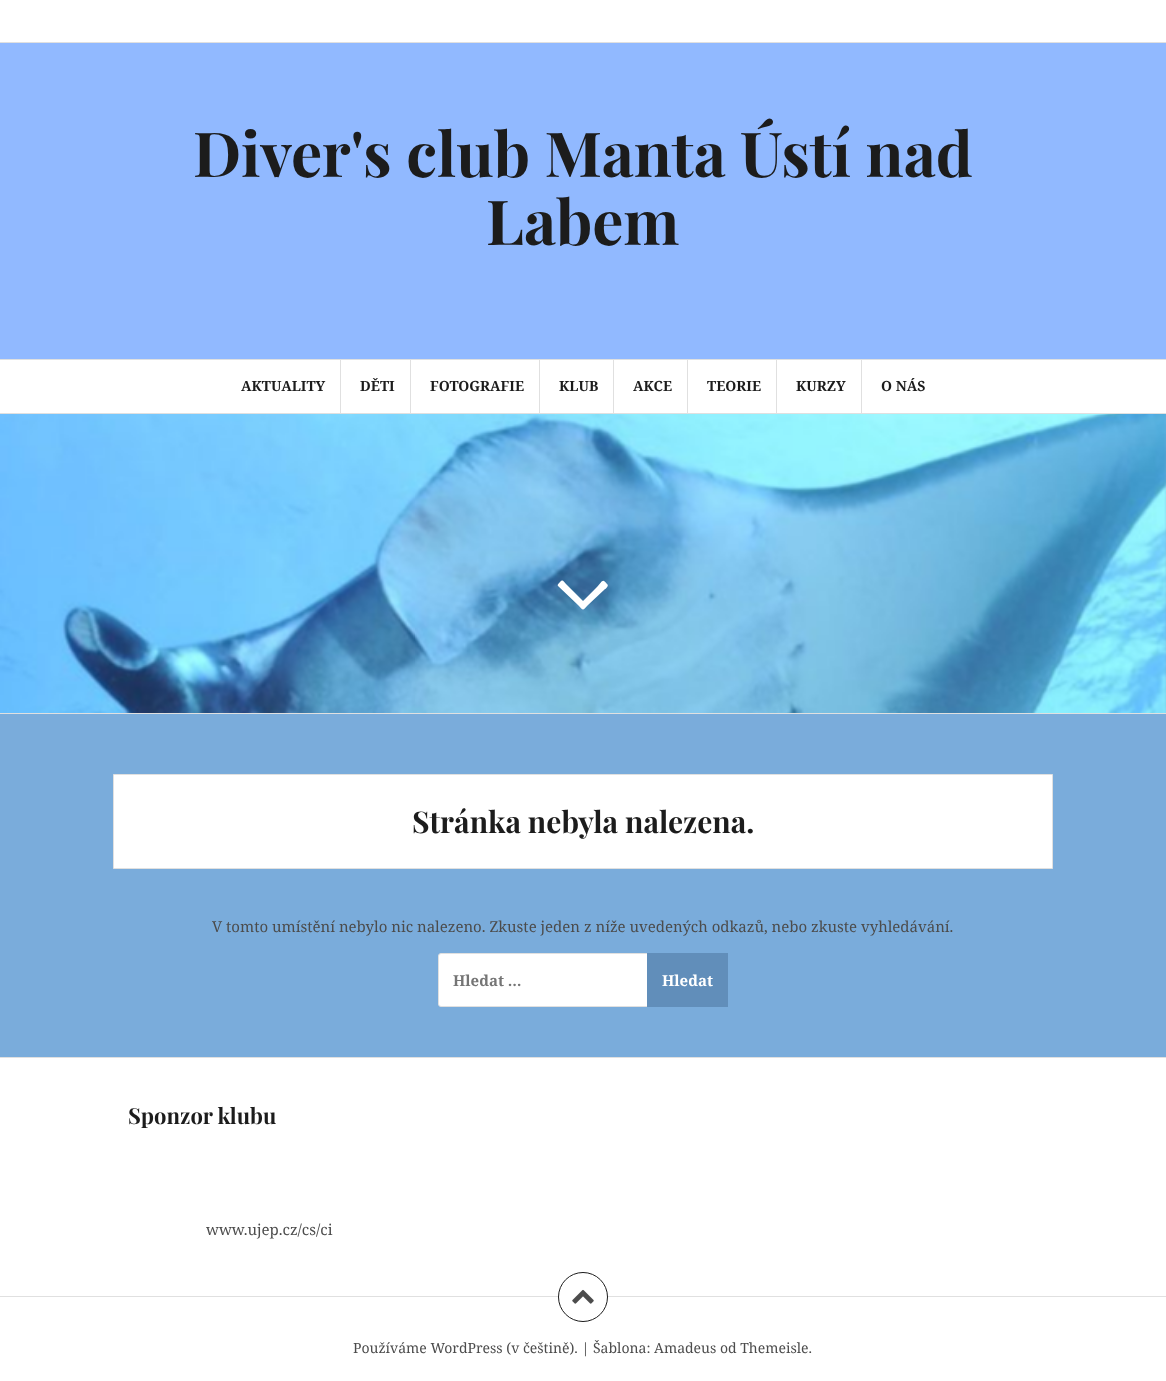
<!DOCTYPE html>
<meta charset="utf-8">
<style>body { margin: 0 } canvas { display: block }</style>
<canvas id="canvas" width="1166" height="1381"></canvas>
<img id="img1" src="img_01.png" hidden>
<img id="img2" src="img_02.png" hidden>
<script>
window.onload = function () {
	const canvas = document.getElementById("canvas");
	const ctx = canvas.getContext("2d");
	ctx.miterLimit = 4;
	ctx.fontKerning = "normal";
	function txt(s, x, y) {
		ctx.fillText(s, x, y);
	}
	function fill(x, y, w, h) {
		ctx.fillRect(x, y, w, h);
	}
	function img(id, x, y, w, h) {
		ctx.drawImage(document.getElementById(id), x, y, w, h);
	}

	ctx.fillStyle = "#7AACDB";
	fill(0, 0, 1166, 1381);
	ctx.fillStyle = "#FFFFFF";
	fill(0, 0, 1166, 413);
	ctx.fillStyle = "#E0E0E0";
	fill(0, 42, 1166, 1);
	ctx.fillStyle = "#91B9FF";
	fill(0, 43, 1166, 316);
	ctx.fillStyle = "#E0E0E0";
	fill(0, 359, 1166, 1);
	fill(0, 413, 1166, 1);
	fill(340, 360, 1, 53);
	fill(410, 360, 1, 53);
	fill(539, 360, 1, 53);
	fill(613, 360, 1, 53);
	fill(687, 360, 1, 53);
	fill(776, 360, 1, 53);
	fill(861, 360, 1, 53);
	img("img1", 0, 414, 1166, 299);
	fill(0, 713, 1166, 1);
	ctx.fillStyle = "#FFFFFF";
	ctx.beginPath();
	ctx.moveTo(607, 584);
	ctx.bezierCurveTo(610, 586, 604, 590, 604, 590);
	ctx.lineTo(588, 605);
	ctx.bezierCurveTo(582, 611, 584, 611, 578, 605);
	ctx.lineTo(558, 586);
	ctx.bezierCurveTo(557, 585, 559, 583, 560, 582);
	ctx.bezierCurveTo(563, 579, 563, 581, 566, 584);
	ctx.lineTo(583, 601);
	ctx.lineTo(596, 588);
	ctx.bezierCurveTo(603, 581, 602, 578, 607, 584);
	ctx.closePath();
	ctx.fill();
	ctx.beginPath();
	ctx.rect(113.5, 774.5, 939, 94);
	ctx.fill();
	ctx.strokeStyle = "#E0E0E0";
	ctx.stroke();
	ctx.beginPath();
	ctx.roundRect(438.5, 953.5, 235, 53, 2.5);
	ctx.fill();
	ctx.stroke();
	ctx.fillStyle = "#618EBA";
	fill(647, 953, 81, 54);
	ctx.fillStyle = "#FFFFFF";
	fill(0, 1058, 1166, 238);
	ctx.fillStyle = "#E0E0E0";
	fill(0, 1057, 1166, 1);
	ctx.fillStyle = "#FFFFFF";
	fill(0, 1297, 1166, 84);
	ctx.fillStyle = "#E0E0E0";
	fill(0, 1296, 1166, 1);
	ctx.fillStyle = "#FFFFFF";
	ctx.beginPath();
	ctx.arc(583, 1297, 24.5, 0, Math.PI * 2);
	ctx.fill();
	ctx.strokeStyle = "#1C1C1C";
	ctx.stroke();
	img("img2", 572, 1289, 22, 15);
	ctx.font = "bold 62px Playfair Display";
	ctx.fillStyle = "#1C1C1C";
	txt("Diver's club Manta Ústí nad", 193, 177);
	txt("Labem", 486, 245);
	ctx.font = "bold 14px Noto Serif";
	txt("AKTUALITY", 241, 391);
	txt("DĚTI", 360, 391);
	txt("FOTOGRAFIE", 430, 391);
	txt("KLUB", 559, 391);
	txt("AKCE", 633, 391);
	txt("TEORIE", 707, 391);
	txt("KURZY", 796, 391);
	txt("O NÁS", 881, 391);
	ctx.font = "bold 30px Playfair Display";
	txt("Stránka nebyla nalezena.", 412, 833);
	ctx.font = "15px Noto Serif";
	ctx.fillStyle = "#4C4C4C";
	txt("V tomto umístění nebylo nic nalezeno. Zkuste jeden z níže uvedených odkazů, nebo zkuste vyhledávání.", 212, 932);
	ctx.font = "bold 15px Noto Serif";
	ctx.fillStyle = "#757575";
	txt("Hledat …", 453, 986);
	ctx.fillStyle = "#FFFFFF";
	txt("Hledat", 662, 986);
	ctx.font = "bold 22px Playfair Display";
	ctx.fillStyle = "#1C1C1C";
	txt("Sponzor klubu", 128, 1124);
	ctx.font = "15px Noto Serif";
	ctx.fillStyle = "#4C4C4C";
	txt("www.ujep.cz/cs/ci", 206, 1235);
	ctx.font = "14px Noto Serif";
	txt("Používáme WordPress (v češtině). | Šablona: Amadeus od Themeisle.", 353, 1353);
};
</script>
